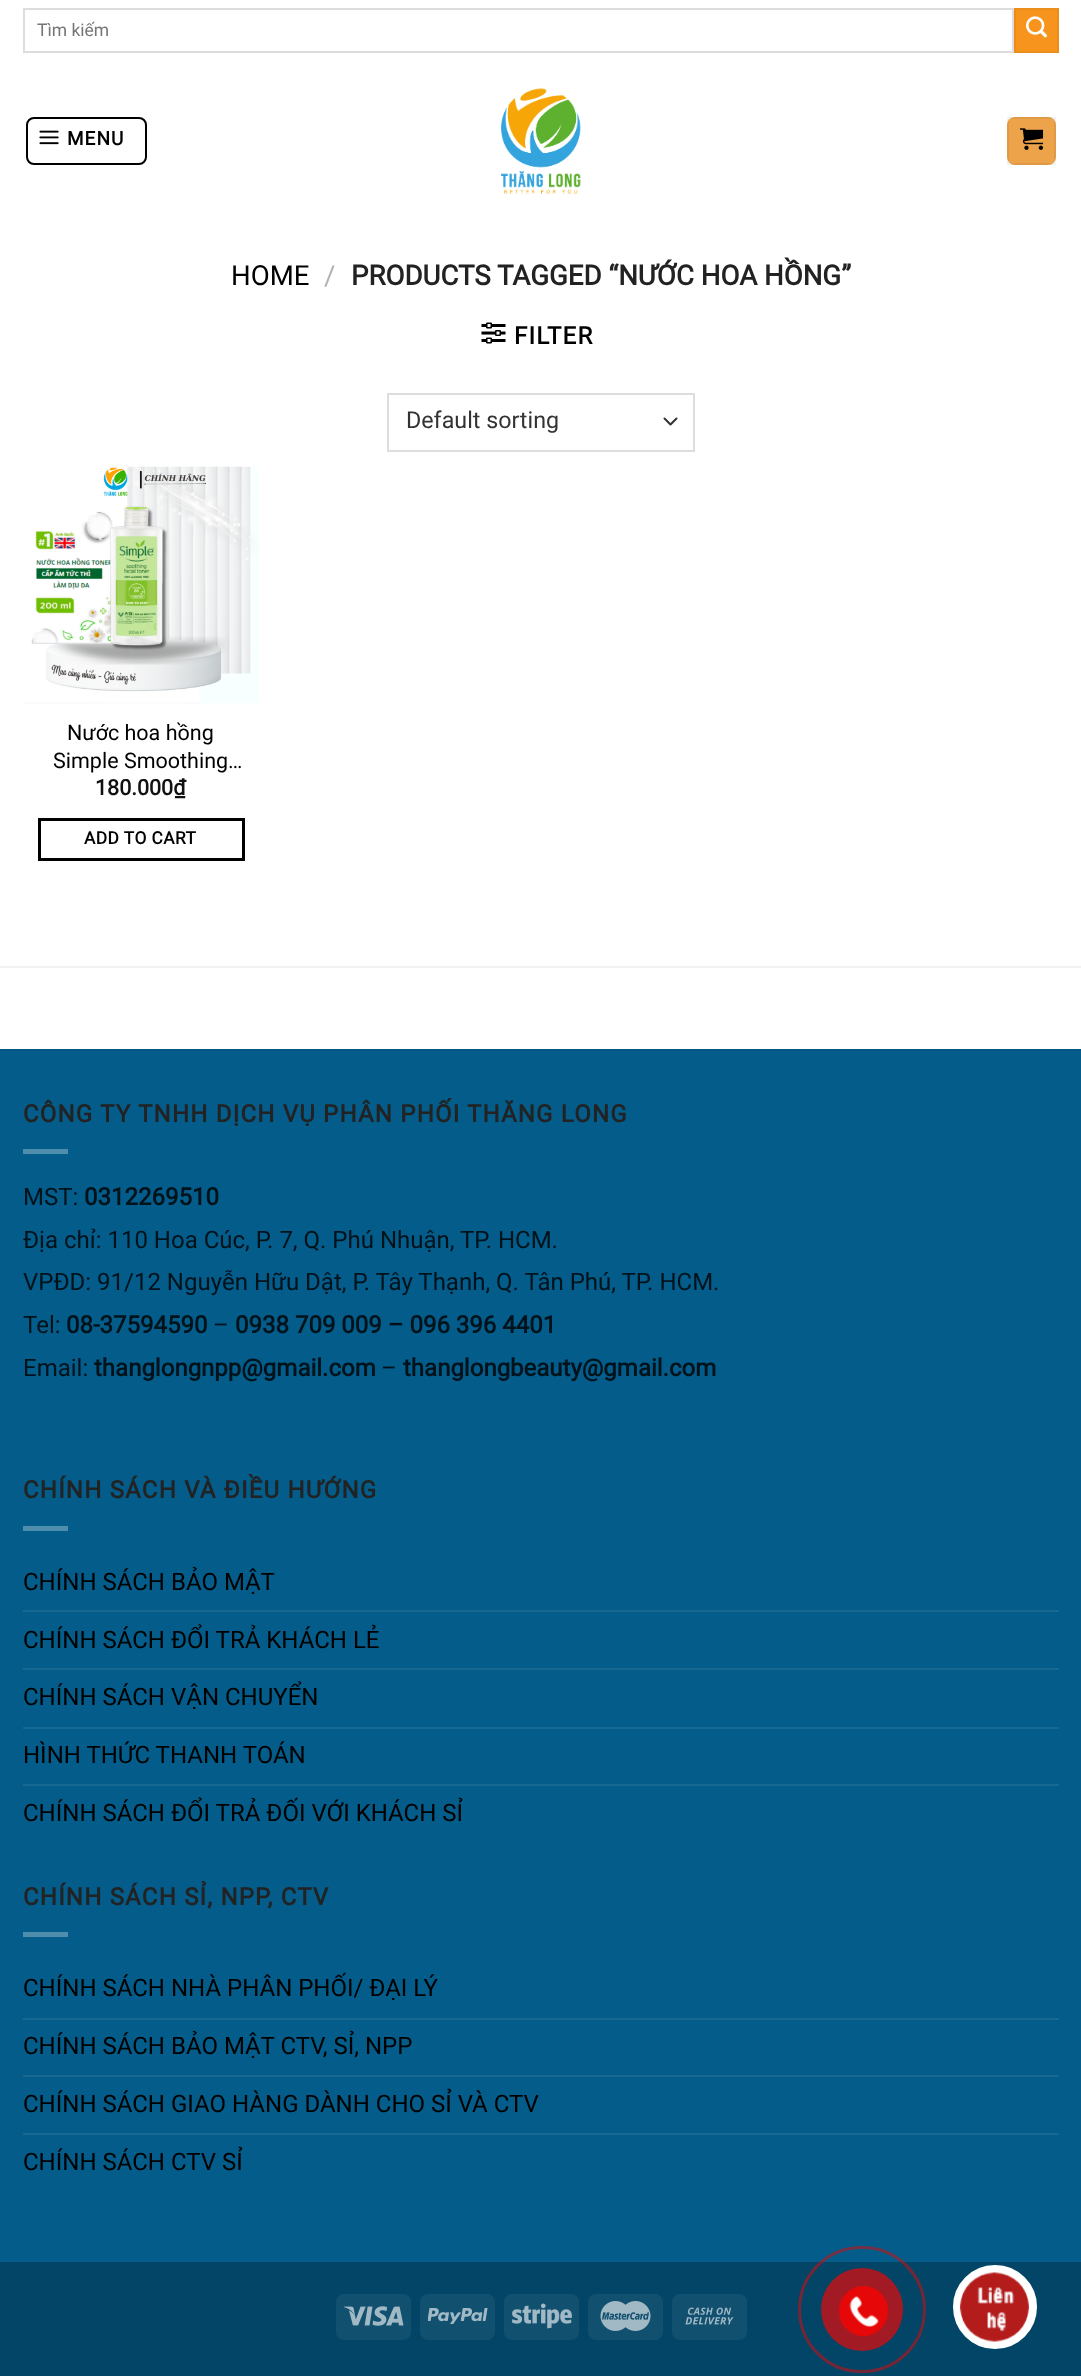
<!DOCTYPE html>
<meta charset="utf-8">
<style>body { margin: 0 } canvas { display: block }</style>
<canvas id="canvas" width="1081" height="2376"></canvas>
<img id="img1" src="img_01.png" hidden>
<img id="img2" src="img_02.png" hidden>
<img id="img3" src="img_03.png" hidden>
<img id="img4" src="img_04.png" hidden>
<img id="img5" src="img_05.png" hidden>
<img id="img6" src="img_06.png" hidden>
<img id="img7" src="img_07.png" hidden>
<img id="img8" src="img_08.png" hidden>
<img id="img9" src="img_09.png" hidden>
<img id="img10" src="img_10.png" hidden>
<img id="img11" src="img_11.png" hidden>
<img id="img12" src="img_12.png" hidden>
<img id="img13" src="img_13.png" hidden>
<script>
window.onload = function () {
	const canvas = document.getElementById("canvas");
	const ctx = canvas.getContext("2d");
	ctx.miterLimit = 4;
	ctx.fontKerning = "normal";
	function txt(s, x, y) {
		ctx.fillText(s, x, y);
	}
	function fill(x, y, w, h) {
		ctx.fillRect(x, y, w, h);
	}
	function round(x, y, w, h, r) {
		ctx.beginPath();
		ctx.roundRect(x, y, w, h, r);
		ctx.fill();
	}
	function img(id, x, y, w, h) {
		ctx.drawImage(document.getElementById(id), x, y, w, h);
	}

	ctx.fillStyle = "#FFFFFF";
	fill(0, 0, 1081, 2376);
	ctx.strokeStyle = "#DDDDDD";
	ctx.lineWidth = 2;
	ctx.strokeRect(24, 9, 989, 43);
	ctx.fillStyle = "#F7941D";
	ctx.beginPath();
	ctx.rect(1015, 9, 43, 43);
	ctx.fill();
	ctx.strokeStyle = "#EB8D1C";
	ctx.stroke();
	img("img1", 1026, 16, 21, 22);
	ctx.beginPath();
	ctx.roundRect(27, 118, 119, 46, 7);
	ctx.strokeStyle = "#000000";
	ctx.stroke();
	img("img2", 39, 130, 20, 15);
	img("img3", 501, 88, 80, 106);
	ctx.fillStyle = "#ECA34A";
	round(1007, 117, 49, 48, 8);
	ctx.strokeStyle = "rgba(0, 0, 0, 0.05)";
	ctx.strokeRect(1008, 118, 47, 46);
	img("img4", 1020, 128, 24, 22);
	img("img5", 481, 322, 25, 22);
	ctx.beginPath();
	ctx.moveTo(664.5, 418.5);
	ctx.lineTo(670.5, 424.5);
	ctx.lineTo(676.5, 418.5);
	ctx.strokeStyle = "#333333";
	ctx.lineCap = "round";
	ctx.lineJoin = "round";
	ctx.stroke();
	ctx.strokeStyle = "#DDDDDD";
	ctx.lineJoin = "miter";
	ctx.strokeRect(388, 394, 306, 57);
	img("img6", 23, 466, 236, 238);
	ctx.strokeStyle = "#000000";
	ctx.lineWidth = 3;
	ctx.strokeRect(39.5, 819.5, 204, 40);
	ctx.fillStyle = "#F2F2F2";
	fill(0, 966, 1081, 2);
	ctx.fillStyle = "#035C89";
	fill(0, 1051, 1081, 1211);
	ctx.fillStyle = "#035782";
	fill(0, 1049, 1081, 2);
	ctx.fillStyle = "#4F8DAC";
	fill(23, 1149, 45, 5);
	fill(23, 1526, 45, 5);
	ctx.fillStyle = "#176992";
	fill(23, 1610, 1036, 2);
	fill(23, 1668, 1036, 2);
	fill(23, 1727, 1036, 2);
	fill(23, 1784, 1036, 2);
	ctx.fillStyle = "#4F8DAC";
	fill(23, 1932, 45, 5);
	ctx.fillStyle = "#176992";
	fill(23, 2018, 1036, 2);
	fill(23, 2075, 1036, 2);
	fill(23, 2133, 1036, 2);
	ctx.fillStyle = "#034566";
	fill(0, 2262, 1081, 114);
	ctx.fillStyle = "#12506F";
	round(336, 2294, 75, 46, 8);
	img("img7", 344, 2306, 60, 20);
	round(420, 2294, 75, 46, 8);
	img("img8", 428, 2308, 60, 16);
	round(504, 2294, 75, 46, 8);
	img("img9", 512, 2303, 60, 26);
	round(588, 2294, 75, 46, 8);
	img("img10", 600, 2301, 51, 30);
	round(672, 2294, 75, 46, 8);
	img("img11", 685, 2307, 49, 18);
	ctx.beginPath();
	ctx.roundRect(799.5, 2247.5, 125, 124, 62);
	ctx.strokeStyle = "rgba(230, 8, 8, 0.5)";
	ctx.stroke();
	ctx.fillStyle = "#A21A24";
	round(821, 2268, 82, 83, 41);
	ctx.fillStyle = "#E60808";
	round(839, 2286, 49, 50, 24.5);
	img("img12", 849, 2296, 30, 31);
	ctx.fillStyle = "#FFFFFF";
	ctx.beginPath();
	ctx.arc(995, 2307, 38, 0, Math.PI * 2);
	ctx.fill();
	ctx.strokeStyle = "#FFFFFF";
	ctx.lineWidth = 8;
	ctx.stroke();
	img("img13", 960, 2272, 69, 70);
	ctx.font = "17.5px Roboto";
	ctx.fillStyle = "#757575";
	txt("Tìm kiếm", 37, 36);
	ctx.letterSpacing = "1px";
	ctx.font = "bold 19px Roboto";
	ctx.fillStyle = "#000000";
	txt("MENU", 67, 145);
	ctx.letterSpacing = "0px";
	ctx.font = "27.6px Roboto";
	txt("HOME", 231, 285);
	ctx.fillStyle = "#B2B2B2";
	txt("/", 324, 285);
	ctx.font = "bold 27.6px Roboto";
	ctx.fillStyle = "#222222";
	txt("PRODUCTS TAGGED “NƯỚC HOA HỒNG”", 351, 285);
	ctx.letterSpacing = "1.2px";
	ctx.font = "bold 24px Roboto";
	ctx.fillStyle = "#000000";
	txt("FILTER", 514, 344);
	ctx.letterSpacing = "0px";
	ctx.font = "23.25px Roboto";
	ctx.fillStyle = "#333333";
	txt("Default sorting", 406, 428);
	ctx.font = "21.5px Roboto";
	ctx.fillStyle = "#000000";
	txt("Nước hoa hồng", 67, 740);
	txt("Simple Smoothing…", 53, 768);
	ctx.font = "bold 21.5px Roboto";
	ctx.fillStyle = "#111111";
	txt("180.000₫", 95, 795);
	ctx.letterSpacing = "0.5px";
	ctx.font = "bold 17.25px Roboto";
	ctx.fillStyle = "#000000";
	txt("ADD TO CART", 84, 844);
	ctx.letterSpacing = "1.2px";
	ctx.font = "bold 24px Roboto";
	ctx.fillStyle = "#222222";
	txt("CÔNG TY TNHH DỊCH VỤ PHÂN PHỐI THĂNG LONG", 23, 1122);
	ctx.letterSpacing = "0px";
	ctx.font = "24px Roboto";
	ctx.fillStyle = "#01121B";
	txt("MST:", 23, 1205);
	ctx.font = "bold 24px Roboto";
	txt("0312269510", 84, 1205);
	ctx.font = "24px Roboto";
	txt("Địa chỉ: 110 Hoa Cúc, P. 7, Q. Phú Nhuận, TP. HCM.", 23, 1248);
	txt("VPĐD: 91/12 Nguyễn Hữu Dật, P. Tây Thạnh, Q. Tân Phú, TP. HCM.", 23, 1290);
	txt("Tel:", 23, 1333);
	ctx.font = "bold 24px Roboto";
	txt("08-37594590", 66, 1333);
	ctx.font = "24px Roboto";
	txt("–", 213, 1333);
	ctx.font = "bold 24px Roboto";
	txt("0938 709 009 – 096 396 4401", 235, 1333);
	ctx.font = "24px Roboto";
	txt("Email:", 23, 1376);
	ctx.font = "bold 24px Roboto";
	txt("thanglongnpp@gmail.com", 94, 1376);
	ctx.font = "24px Roboto";
	txt("–", 381, 1376);
	ctx.font = "bold 24px Roboto";
	txt("thanglongbeauty@gmail.com", 403, 1376);
	ctx.letterSpacing = "1.2px";
	ctx.fillStyle = "#222222";
	txt("CHÍNH SÁCH VÀ ĐIỀU HƯỚNG", 23, 1498);
	ctx.letterSpacing = "0px";
	ctx.font = "24px Roboto";
	ctx.fillStyle = "#000000";
	txt("CHÍNH SÁCH BẢO MẬT", 23, 1590);
	txt("CHÍNH SÁCH ĐỔI TRẢ KHÁCH LẺ", 23, 1648);
	txt("CHÍNH SÁCH VẬN CHUYỂN", 23, 1705);
	txt("HÌNH THỨC THANH TOÁN", 23, 1763);
	txt("CHÍNH SÁCH ĐỔI TRẢ ĐỐI VỚI KHÁCH SỈ", 23, 1821);
	ctx.letterSpacing = "1.2px";
	ctx.font = "bold 24px Roboto";
	ctx.fillStyle = "#222222";
	txt("CHÍNH SÁCH SỈ, NPP, CTV", 23, 1905);
	ctx.letterSpacing = "0px";
	ctx.font = "24px Roboto";
	ctx.fillStyle = "#000000";
	txt("CHÍNH SÁCH NHÀ PHÂN PHỐI/ ĐẠI LÝ", 23, 1996);
	txt("CHÍNH SÁCH BẢO MẬT CTV, SỈ, NPP", 23, 2054);
	txt("CHÍNH SÁCH GIAO HÀNG DÀNH CHO SỈ VÀ CTV", 23, 2112);
	txt("CHÍNH SÁCH CTV SỈ", 23, 2170);
};
</script>
